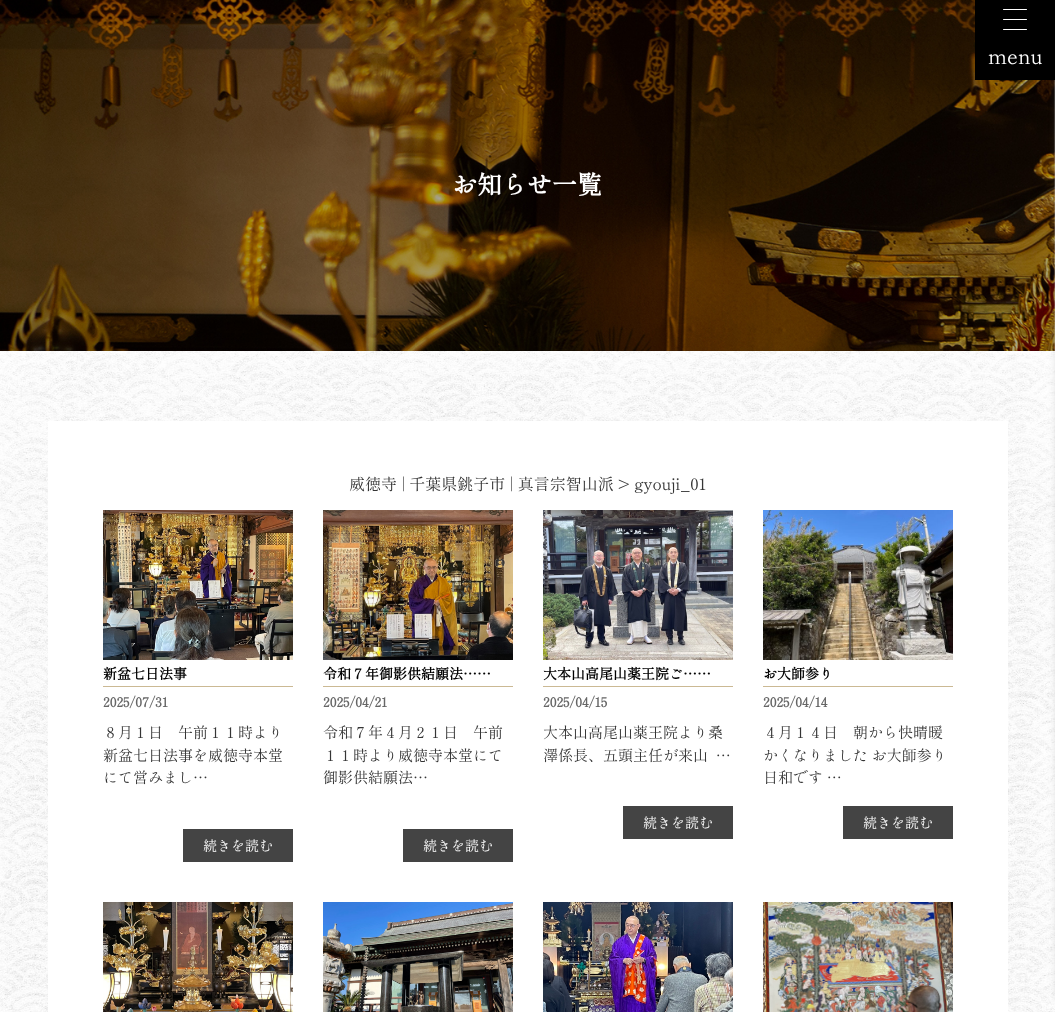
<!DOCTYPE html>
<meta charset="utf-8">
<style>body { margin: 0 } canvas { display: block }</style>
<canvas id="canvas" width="1055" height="1012"></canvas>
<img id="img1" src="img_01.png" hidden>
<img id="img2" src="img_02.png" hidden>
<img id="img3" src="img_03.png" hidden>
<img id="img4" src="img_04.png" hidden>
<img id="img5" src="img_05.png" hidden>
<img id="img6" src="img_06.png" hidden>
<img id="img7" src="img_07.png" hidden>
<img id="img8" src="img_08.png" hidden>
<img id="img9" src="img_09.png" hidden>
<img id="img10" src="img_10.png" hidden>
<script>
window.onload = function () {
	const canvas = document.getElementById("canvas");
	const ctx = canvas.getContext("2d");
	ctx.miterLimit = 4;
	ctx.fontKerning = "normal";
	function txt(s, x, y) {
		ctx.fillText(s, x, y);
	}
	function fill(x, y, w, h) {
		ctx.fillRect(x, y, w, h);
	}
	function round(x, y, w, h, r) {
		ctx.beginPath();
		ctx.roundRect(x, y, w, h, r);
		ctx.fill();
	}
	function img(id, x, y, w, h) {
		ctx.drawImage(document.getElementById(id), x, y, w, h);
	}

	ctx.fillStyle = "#FFFFFF";
	fill(0, 0, 1055, 1012);
	img("img1", 0, 0, 1055, 351);
	img("img2", 0, 351, 1055, 661);
	ctx.fillStyle = "#777777";
	ctx.filter = "blur(6px)";
	ctx.beginPath();
	ctx.rect(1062, 13, 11, 986);
	ctx.fill();
	ctx.filter = "none";
	ctx.fillStyle = "#000000";
	fill(975, 0, 80, 80);
	ctx.fillStyle = "#FFFFFF";
	round(1003, 19, 24, 1, 0.5);
	round(1003, 9, 24, 1, 0.5);
	round(1003, 29, 24, 1, 0.5);
	fill(48, 421, 960, 591);
	img("img3", 103, 510, 190, 150);
	ctx.fillStyle = "#CBB994";
	fill(103, 686, 190, 1);
	ctx.fillStyle = "#444444";
	fill(183, 829, 110, 33);
	img("img4", 323, 510, 190, 150);
	ctx.fillStyle = "#CBB994";
	fill(323, 686, 190, 1);
	ctx.fillStyle = "#444444";
	fill(403, 829, 110, 33);
	img("img5", 543, 510, 190, 150);
	ctx.fillStyle = "#CBB994";
	fill(543, 686, 190, 1);
	ctx.fillStyle = "#444444";
	fill(623, 806, 110, 33);
	img("img6", 763, 510, 190, 150);
	ctx.fillStyle = "#CBB994";
	fill(763, 686, 190, 1);
	ctx.fillStyle = "#444444";
	fill(843, 806, 110, 33);
	img("img7", 103, 902, 190, 110);
	img("img8", 323, 902, 190, 110);
	img("img9", 543, 902, 190, 110);
	img("img10", 763, 902, 190, 110);
	ctx.font = "20px Shippori Mincho";
	ctx.fillStyle = "#FFFFFF";
	txt("menu", 988, 64);
	ctx.font = "bold 25px Shippori Mincho";
	txt("お知らせ一覧", 452, 194);
	ctx.font = "16px Shippori Mincho";
	ctx.fillStyle = "#353535";
	txt("威徳寺 | 千葉県銚子市 | 真言宗智山派 > gyouji_01", 349, 490);
	ctx.font = "bold 14px Shippori Mincho";
	ctx.fillStyle = "#000000";
	txt("新盆七日法事", 103, 679);
	ctx.font = "bold 13px Shippori Mincho";
	ctx.fillStyle = "#666666";
	txt("2025/07/31", 103, 707);
	ctx.font = "15px Shippori Mincho";
	ctx.fillStyle = "#353535";
	txt("８月１日　午前１１時より", 103, 738);
	txt("新盆七日法事を威徳寺本堂", 103, 761);
	txt("にて営みまし…", 103, 783);
	ctx.font = "14px Shippori Mincho";
	ctx.fillStyle = "#FFFFFF";
	txt("続きを読む", 203, 851);
	ctx.font = "bold 14px Shippori Mincho";
	ctx.fillStyle = "#000000";
	txt("令和７年御影供結願法……", 323, 679);
	ctx.font = "bold 13px Shippori Mincho";
	ctx.fillStyle = "#666666";
	txt("2025/04/21", 323, 707);
	ctx.font = "15px Shippori Mincho";
	ctx.fillStyle = "#353535";
	txt("令和７年４月２１日　午前", 323, 738);
	txt("１１時より威徳寺本堂にて", 323, 761);
	txt("御影供結願法…", 323, 783);
	ctx.font = "14px Shippori Mincho";
	ctx.fillStyle = "#FFFFFF";
	txt("続きを読む", 423, 851);
	ctx.font = "bold 14px Shippori Mincho";
	ctx.fillStyle = "#000000";
	txt("大本山高尾山薬王院ご……", 543, 679);
	ctx.font = "bold 13px Shippori Mincho";
	ctx.fillStyle = "#666666";
	txt("2025/04/15", 543, 707);
	ctx.font = "15px Shippori Mincho";
	ctx.fillStyle = "#353535";
	txt("大本山高尾山薬王院より桑", 543, 738);
	txt("澤係長、五頭主任が来山  …", 543, 761);
	ctx.font = "14px Shippori Mincho";
	ctx.fillStyle = "#FFFFFF";
	txt("続きを読む", 643, 828);
	ctx.font = "bold 14px Shippori Mincho";
	ctx.fillStyle = "#000000";
	txt("お大師参り", 763, 679);
	ctx.font = "bold 13px Shippori Mincho";
	ctx.fillStyle = "#666666";
	txt("2025/04/14", 763, 707);
	ctx.font = "15px Shippori Mincho";
	ctx.fillStyle = "#353535";
	txt("４月１４日　朝から快晴暖", 763, 738);
	txt("かくなりました お大師参り", 763, 761);
	txt("日和です …", 763, 783);
	ctx.font = "14px Shippori Mincho";
	ctx.fillStyle = "#FFFFFF";
	txt("続きを読む", 863, 828);
};
</script>
